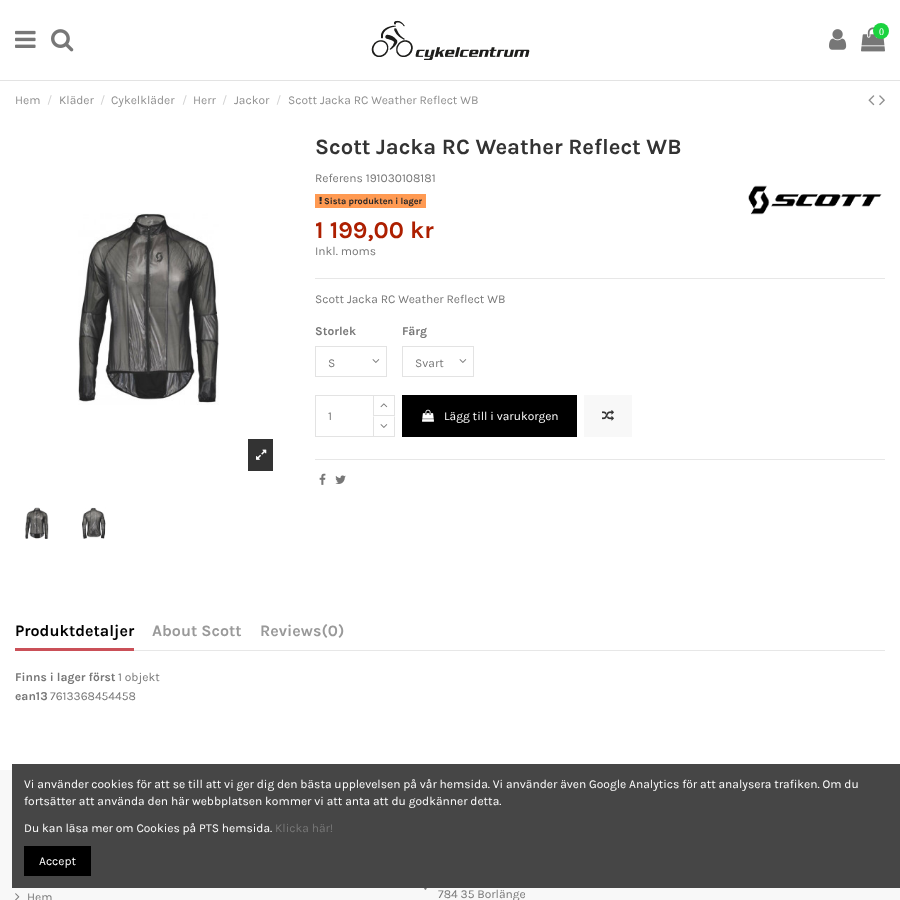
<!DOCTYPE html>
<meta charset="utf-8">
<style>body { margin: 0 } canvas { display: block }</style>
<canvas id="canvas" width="900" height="900"></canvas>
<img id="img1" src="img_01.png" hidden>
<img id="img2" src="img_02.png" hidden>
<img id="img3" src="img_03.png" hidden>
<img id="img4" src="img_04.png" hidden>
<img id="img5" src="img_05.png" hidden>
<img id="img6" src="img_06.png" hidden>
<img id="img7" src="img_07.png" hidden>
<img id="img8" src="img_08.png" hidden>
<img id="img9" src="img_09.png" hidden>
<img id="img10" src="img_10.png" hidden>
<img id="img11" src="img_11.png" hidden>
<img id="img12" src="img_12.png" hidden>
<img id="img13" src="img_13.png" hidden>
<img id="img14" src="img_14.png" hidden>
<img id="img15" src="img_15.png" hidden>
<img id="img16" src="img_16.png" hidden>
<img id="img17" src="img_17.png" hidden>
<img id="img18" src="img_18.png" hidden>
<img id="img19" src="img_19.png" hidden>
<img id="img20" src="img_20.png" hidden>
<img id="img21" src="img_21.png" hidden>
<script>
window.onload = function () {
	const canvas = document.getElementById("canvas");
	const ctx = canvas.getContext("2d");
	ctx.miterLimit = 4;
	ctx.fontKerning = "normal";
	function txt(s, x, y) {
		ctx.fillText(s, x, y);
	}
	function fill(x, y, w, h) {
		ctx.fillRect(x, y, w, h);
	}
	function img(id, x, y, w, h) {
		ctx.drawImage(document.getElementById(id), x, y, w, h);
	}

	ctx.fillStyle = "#FFFFFF";
	fill(0, 0, 900, 900);
	ctx.fillStyle = "#E3E3E3";
	fill(0, 80, 900, 1);
	img("img1", 15, 30, 21, 18);
	img("img2", 51, 29, 23, 23);
	img("img3", 371, 20, 159, 40);
	img("img4", 829, 29, 18, 21);
	img("img5", 861, 27, 24, 25);
	ctx.fillStyle = "#1BD33F";
	ctx.beginPath();
	ctx.arc(881, 31, 8, 0, Math.PI * 2);
	ctx.fill();
	img("img6", 868, 95, 7, 11);
	img("img7", 879, 95, 6, 11);
	img("img8", 78, 213, 141, 192);
	ctx.fillStyle = "#333333";
	fill(248, 439, 25, 32);
	img("img9", 256, 449, 11, 11);
	img("img10", 25, 507, 24, 32);
	img("img11", 82, 507, 24, 32);
	ctx.fillStyle = "#E7E7E7";
	fill(315, 278, 570, 1);
	ctx.fillStyle = "#FF9A52";
	fill(315, 194, 111, 14);
	img("img12", 319, 196, 3, 8);
	img("img13", 748, 185, 134, 30);
	img("img14", 372, 359, 8, 4);
	ctx.strokeStyle = "#E3E3E3";
	ctx.strokeRect(315.5, 346.5, 71, 30);
	img("img14", 459, 359, 8, 4);
	ctx.strokeRect(402.5, 346.5, 71, 30);
	ctx.strokeRect(315.5, 395.5, 58, 41);
	ctx.strokeRect(373.5, 395.5, 21, 20);
	img("img15", 380, 403, 8, 5);
	ctx.fillStyle = "#FFFFFF";
	fill(373, 416, 1, 20);
	ctx.fillStyle = "#E3E3E3";
	ctx.beginPath();
	ctx.moveTo(395, 416);
	ctx.lineTo(395, 437);
	ctx.lineTo(394, 436);
	ctx.lineTo(394, 417);
	ctx.closePath();
	ctx.fill();
	fill(373, 436, 22, 1);
	ctx.beginPath();
	ctx.moveTo(373, 437);
	ctx.lineTo(373, 416);
	ctx.lineTo(374, 417);
	ctx.lineTo(374, 436);
	ctx.closePath();
	ctx.fill();
	img("img14", 380, 424, 8, 4);
	ctx.fillStyle = "#000000";
	fill(402, 395, 175, 42);
	img("img16", 422, 409, 12, 13);
	ctx.fillStyle = "#F8F8F8";
	fill(584, 395, 48, 42);
	img("img17", 602, 410, 12, 11);
	ctx.fillStyle = "#E7E7E7";
	fill(315, 459, 570, 1);
	img("img18", 319, 473, 7, 12);
	img("img19", 335, 475, 11, 9);
	fill(134, 650, 751, 1);
	ctx.fillStyle = "#CA5058";
	fill(15, 648, 119, 3);
	ctx.fillStyle = "#F8F8F8";
	fill(0, 770, 900, 130);
	img("img20", 15, 893, 5, 7);
	img("img21", 424, 888, 3, 2);
	ctx.fillStyle = "#464646";
	fill(12, 764, 888, 124);
	ctx.fillStyle = "#000000";
	fill(24, 846, 67, 30);
	ctx.font = "10px Liberation Serif";
	ctx.fillStyle = "#FFFFFF";
	txt("0", 879, 35);
	ctx.font = "12px Karla";
	ctx.fillStyle = "#8F8F8F";
	txt("Hem", 15, 104);
	ctx.fillStyle = "#D2D2D2";
	txt("/", 47, 104);
	ctx.fillStyle = "#8F8F8F";
	txt("Kläder", 59, 104);
	ctx.fillStyle = "#D2D2D2";
	txt("/", 100, 104);
	ctx.fillStyle = "#8F8F8F";
	txt("Cykelkläder", 111, 104);
	ctx.fillStyle = "#D2D2D2";
	txt("/", 182, 104);
	ctx.fillStyle = "#8F8F8F";
	txt("Herr", 193, 104);
	ctx.fillStyle = "#D2D2D2";
	txt("/", 222, 104);
	ctx.fillStyle = "#8F8F8F";
	txt("Jackor", 234, 104);
	ctx.fillStyle = "#D2D2D2";
	txt("/", 276, 104);
	ctx.fillStyle = "#8F8F8F";
	txt("Scott Jacka RC Weather Reflect WB", 288, 104);
	ctx.font = "bold 22px Karla";
	ctx.fillStyle = "#333333";
	txt("Scott Jacka RC Weather Reflect WB", 315, 154);
	ctx.font = "12px Karla";
	ctx.fillStyle = "#777777";
	txt("Referens 191030108181", 315, 182);
	ctx.font = "bold 9px Karla";
	ctx.fillStyle = "#212529";
	txt("Sista produkten i lager", 324, 204);
	ctx.font = "bold 24px Karla";
	ctx.fillStyle = "#AD1F00";
	txt("1 199,00 kr", 315, 238);
	ctx.font = "12px Karla";
	ctx.fillStyle = "#777777";
	txt("Inkl. moms", 315, 255);
	txt("Scott Jacka RC Weather Reflect WB", 315, 303);
	ctx.font = "bold 12px Karla";
	txt("Storlek", 315, 335);
	ctx.font = "12px Karla";
	txt("S", 328, 367);
	ctx.font = "bold 12px Karla";
	txt("Färg", 402, 335);
	ctx.font = "12px Karla";
	txt("Svart", 415, 367);
	txt("1", 328, 420);
	ctx.fillStyle = "#FFFFFF";
	txt("Lägg till i varukorgen", 444, 420);
	ctx.font = "bold 16px Karla";
	ctx.fillStyle = "#000000";
	txt("Produktdetaljer", 15, 636);
	ctx.fillStyle = "#999999";
	txt("About Scott", 152, 636);
	txt("Reviews(0)", 260, 636);
	ctx.font = "bold 12px Karla";
	ctx.fillStyle = "#777777";
	txt("Finns i lager först", 15, 681);
	ctx.font = "12px Karla";
	txt("1 objekt", 118, 681);
	ctx.font = "bold 12px Karla";
	txt("ean13", 15, 700);
	ctx.font = "12px Karla";
	txt("7613368454458", 50, 700);
	txt("Hem", 27, 901);
	txt("784 35 Borlänge", 438, 898);
	ctx.fillStyle = "#FFFFFF";
	txt("Vi använder cookies för att se till att vi ger dig den bästa upplevelsen på vår hemsida. Vi använder även Google Analytics för att analysera trafiken. Om du", 24, 788);
	txt("fortsätter att använda den här webbplatsen kommer vi att anta att du godkänner detta.", 24, 805);
	txt("Du kan läsa mer om Cookies på PTS hemsida.", 24, 832);
	ctx.fillStyle = "#777777";
	txt("Klicka här!", 275, 832);
	ctx.fillStyle = "#FFFFFF";
	txt("Accept", 39, 865);
};
</script>
